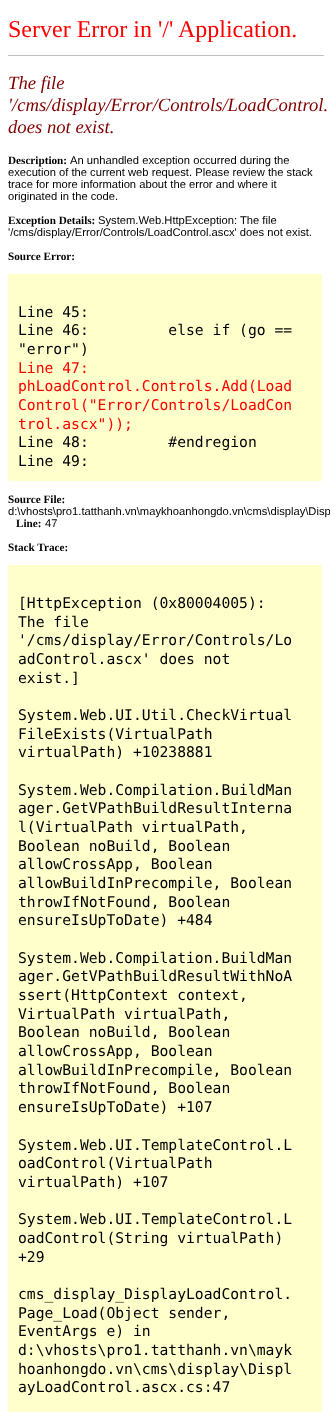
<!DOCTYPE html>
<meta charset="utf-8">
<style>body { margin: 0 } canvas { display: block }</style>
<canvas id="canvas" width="330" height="1412"></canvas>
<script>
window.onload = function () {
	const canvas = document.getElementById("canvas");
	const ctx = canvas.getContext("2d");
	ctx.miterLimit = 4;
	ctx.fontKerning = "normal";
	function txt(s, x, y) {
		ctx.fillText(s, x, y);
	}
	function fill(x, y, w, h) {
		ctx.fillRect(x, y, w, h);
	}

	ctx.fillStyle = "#FFFFFF";
	fill(0, 0, 330, 1412);
	ctx.fillStyle = "#C0C0C0";
	fill(8, 55, 316, 1);
	ctx.fillStyle = "#FFFFCC";
	fill(8, 274, 314, 207);
	fill(8, 565, 314, 847);
	ctx.font = "24px Liberation Serif";
	ctx.fillStyle = "#FF0000";
	txt("Server Error in '/' Application.", 8, 37);
	ctx.font = "italic 18.7px Liberation Serif";
	ctx.fillStyle = "#800000";
	txt("The file", 8, 89);
	txt("'/cms/display/Error/Controls/LoadControl.", 8, 111);
	txt("does not exist.", 8, 133);
	ctx.font = "bold 11.2px Liberation Serif";
	ctx.fillStyle = "#000000";
	txt("Description:", 8, 164);
	ctx.font = "11.2px Liberation Sans";
	txt("An unhandled exception occurred during the", 70, 164);
	txt("execution of the current web request. Please review the stack", 8, 176);
	txt("trace for more information about the error and where it", 8, 188);
	txt("originated in the code.", 8, 200);
	ctx.font = "bold 11.2px Liberation Serif";
	txt("Exception Details:", 8, 224);
	ctx.font = "11.2px Liberation Sans";
	txt("System.Web.HttpException: The file", 98, 224);
	txt("'/cms/display/Error/Controls/LoadControl.ascx' does not exist.", 8, 236);
	ctx.font = "bold 11.2px Liberation Serif";
	txt("Source Error:", 8, 260);
	ctx.font = "14.7px DejaVu Sans Mono";
	txt("Line 45:", 18, 317);
	txt("Line 46:         else if (go ==", 18, 335);
	txt("\"error\")", 18, 354);
	ctx.fillStyle = "#FF0000";
	txt("Line 47:", 18, 373);
	txt("phLoadControl.Controls.Add(Load", 18, 391);
	txt("Control(\"Error/Controls/LoadCon", 18, 410);
	txt("trol.ascx\"));", 18, 429);
	ctx.fillStyle = "#000000";
	txt("Line 48:         #endregion", 18, 447);
	txt("Line 49:", 18, 466);
	ctx.font = "bold 11.2px Liberation Serif";
	txt("Source File:", 8, 503);
	ctx.font = "11.2px Liberation Sans";
	txt("d:\\vhosts\\pro1.tatthanh.vn\\maykhoanhongdo.vn\\cms\\display\\Disp", 8, 515);
	ctx.font = "bold 11.2px Liberation Serif";
	txt("Line:", 16, 527);
	ctx.font = "11.2px Liberation Sans";
	txt("47", 45, 527);
	ctx.font = "bold 11.2px Liberation Serif";
	txt("Stack Trace:", 8, 551);
	ctx.font = "14.7px DejaVu Sans Mono";
	txt("[HttpException (0x80004005):", 18, 608);
	txt("The file", 18, 627);
	txt("'/cms/display/Error/Controls/Lo", 18, 645);
	txt("adControl.ascx' does not", 18, 664);
	txt("exist.]", 18, 683);
	txt("System.Web.UI.Util.CheckVirtual", 18, 720);
	txt("FileExists(VirtualPath", 18, 739);
	txt("virtualPath) +10238881", 18, 757);
	txt("System.Web.Compilation.BuildMan", 18, 795);
	txt("ager.GetVPathBuildResultInterna", 18, 813);
	txt("l(VirtualPath virtualPath,", 18, 832);
	txt("Boolean noBuild, Boolean", 18, 851);
	txt("allowCrossApp, Boolean", 18, 869);
	txt("allowBuildInPrecompile, Boolean", 18, 888);
	txt("throwIfNotFound, Boolean", 18, 907);
	txt("ensureIsUpToDate) +484", 18, 925);
	txt("System.Web.Compilation.BuildMan", 18, 963);
	txt("ager.GetVPathBuildResultWithNoA", 18, 981);
	txt("ssert(HttpContext context,", 18, 1000);
	txt("VirtualPath virtualPath,", 18, 1019);
	txt("Boolean noBuild, Boolean", 18, 1037);
	txt("allowCrossApp, Boolean", 18, 1056);
	txt("allowBuildInPrecompile, Boolean", 18, 1075);
	txt("throwIfNotFound, Boolean", 18, 1093);
	txt("ensureIsUpToDate) +107", 18, 1112);
	txt("System.Web.UI.TemplateControl.L", 18, 1150);
	txt("oadControl(VirtualPath", 18, 1168);
	txt("virtualPath) +107", 18, 1187);
	txt("System.Web.UI.TemplateControl.L", 18, 1224);
	txt("oadControl(String virtualPath)", 18, 1243);
	txt("+29", 18, 1262);
	txt("cms_display_DisplayLoadControl.", 18, 1299);
	txt("Page_Load(Object sender,", 18, 1318);
	txt("EventArgs e) in", 18, 1336);
	txt("d:\\vhosts\\pro1.tatthanh.vn\\mayk", 18, 1355);
	txt("hoanhongdo.vn\\cms\\display\\Displ", 18, 1374);
	txt("ayLoadControl.ascx.cs:47", 18, 1392);
};
</script>
